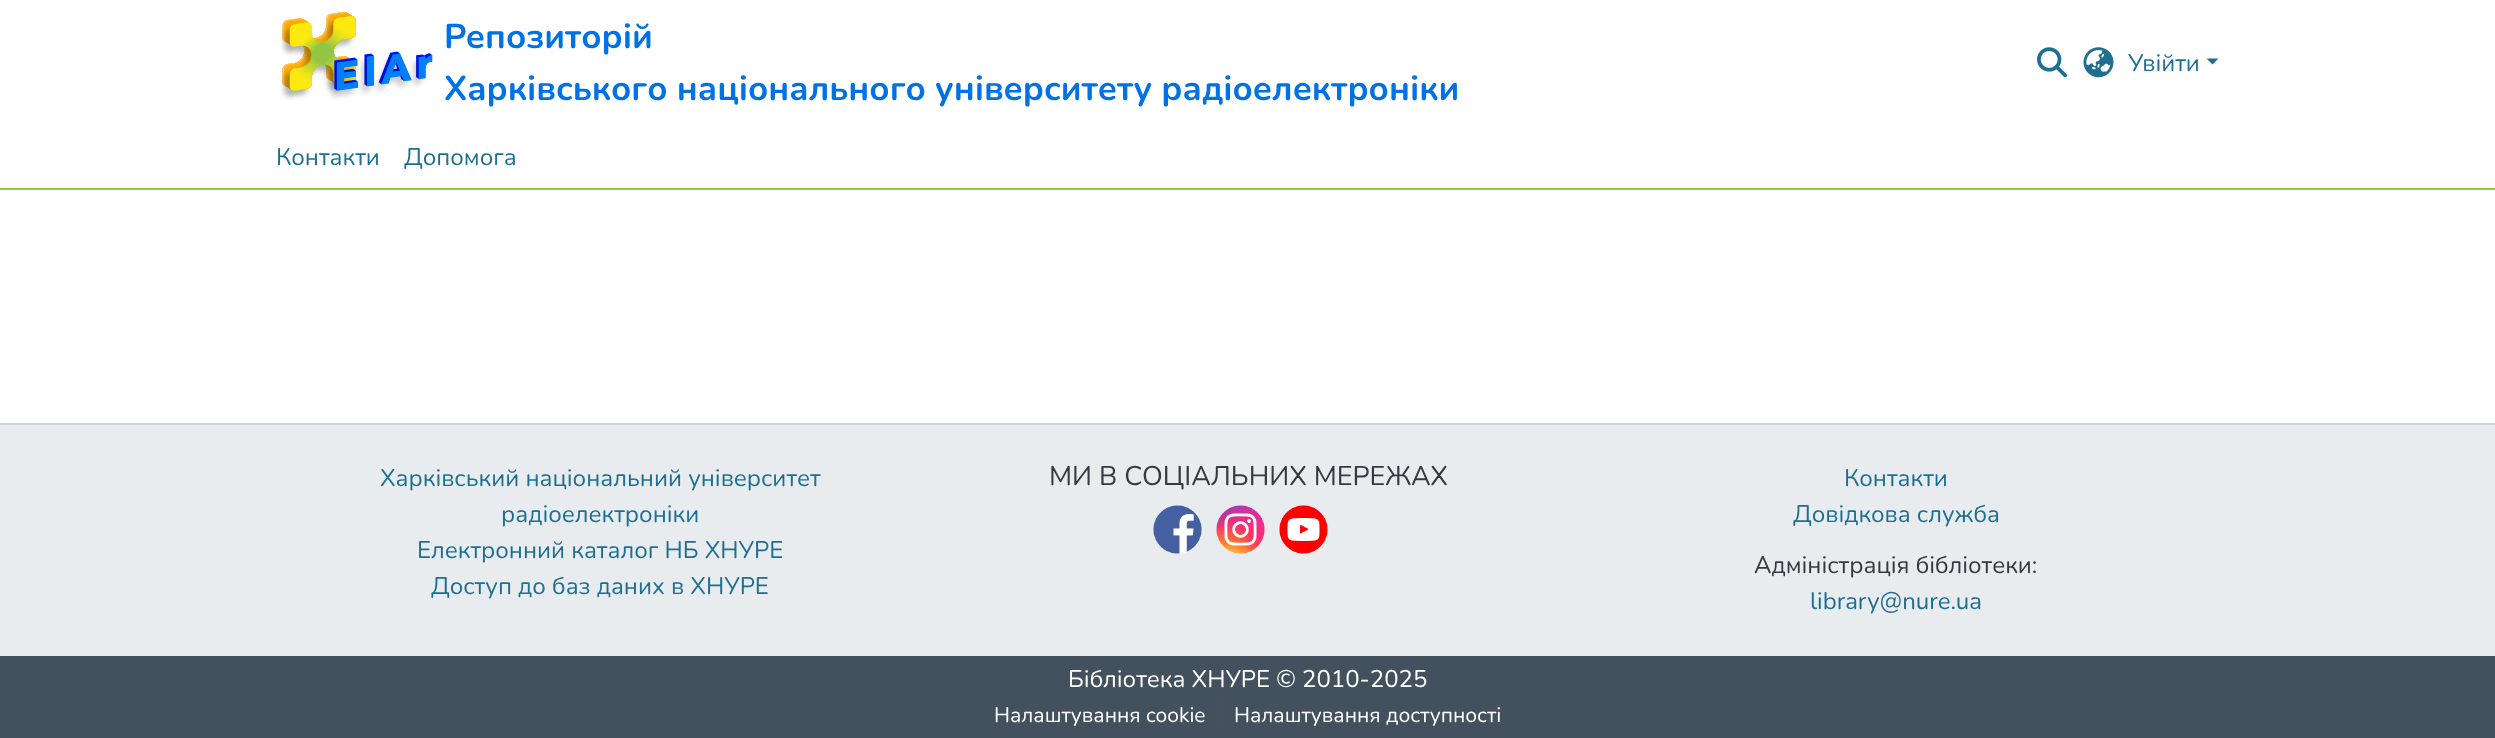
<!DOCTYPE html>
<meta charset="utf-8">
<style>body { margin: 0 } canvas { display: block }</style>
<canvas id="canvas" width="2495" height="738"></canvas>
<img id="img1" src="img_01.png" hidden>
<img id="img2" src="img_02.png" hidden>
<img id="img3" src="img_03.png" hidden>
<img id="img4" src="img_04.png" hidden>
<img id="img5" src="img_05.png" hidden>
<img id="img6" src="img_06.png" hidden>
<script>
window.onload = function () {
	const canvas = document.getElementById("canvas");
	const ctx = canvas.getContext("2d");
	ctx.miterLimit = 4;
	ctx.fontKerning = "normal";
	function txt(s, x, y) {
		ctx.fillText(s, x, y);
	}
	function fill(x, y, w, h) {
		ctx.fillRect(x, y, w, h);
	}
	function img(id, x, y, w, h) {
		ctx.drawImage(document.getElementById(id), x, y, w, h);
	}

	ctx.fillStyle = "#FFFFFF";
	fill(0, 0, 2495, 738);
	ctx.fillStyle = "#92C642";
	fill(0, 188, 2495, 2);
	img("img1", 281, 12, 152, 88);
	img("img2", 2037, 47, 30, 31);
	img("img3", 2083, 47, 31, 31);
	ctx.fillStyle = "#1E6F90";
	ctx.beginPath();
	ctx.moveTo(2206.5, 58.5);
	ctx.lineTo(2218.5, 58.5);
	ctx.lineTo(2212.5, 64.5);
	ctx.closePath();
	ctx.fill();
	ctx.fillStyle = "#43515F";
	fill(0, 656, 2495, 82);
	ctx.fillStyle = "#CED4DA";
	fill(0, 423, 2495, 2);
	ctx.fillStyle = "#E9ECEF";
	fill(0, 425, 2495, 231);
	img("img4", 1153, 505, 49, 49);
	img("img5", 1216, 505, 49, 49);
	img("img6", 1279, 505, 49, 49);
	ctx.fillStyle = "#495057";
	fill(1220, 698, 2, 34);
	ctx.font = "bold 34.5px Nunito";
	ctx.fillStyle = "#0172E6";
	txt("Репозиторій", 444, 48);
	txt("Харківського національного університету радіоелектроніки", 444, 100);
	ctx.font = "24px Nunito";
	ctx.fillStyle = "#1E6F90";
	txt("Увійти", 2128, 71);
	txt("Контакти", 276, 165);
	txt("Допомога", 404, 165);
	txt("Харківський національний університет", 380, 486);
	txt("радіоелектроніки", 501, 522);
	txt("Електронний каталог НБ ХНУРЕ", 417, 558);
	txt("Доступ до баз даних в ХНУРЕ", 431, 594);
	ctx.font = "27px Nunito";
	ctx.fillStyle = "#343A40";
	txt("МИ В СОЦІАЛЬНИХ МЕРЕЖАХ", 1049, 485);
	ctx.font = "24px Nunito";
	ctx.fillStyle = "#1E6F90";
	txt("Контакти", 1844, 486);
	txt("Довідкова служба", 1793, 522);
	ctx.fillStyle = "#343A40";
	txt("Адміністрація бібліотеки:", 1754, 573);
	ctx.fillStyle = "#1E6F90";
	txt("library@nure.ua", 1810, 609);
	ctx.fillStyle = "#FFFFFF";
	txt("Бібліотека ХНУРЕ © 2010-2025", 1068, 687);
	ctx.font = "21px Nunito";
	txt("Налаштування cookie", 994, 722);
	txt("Налаштування доступності", 1234, 722);
};
</script>
